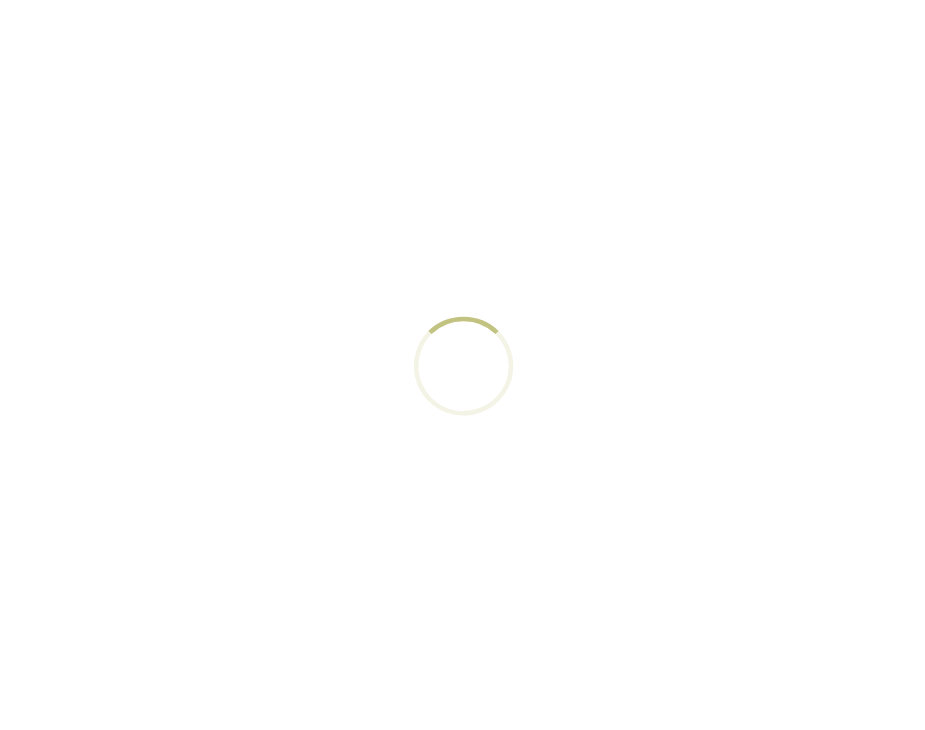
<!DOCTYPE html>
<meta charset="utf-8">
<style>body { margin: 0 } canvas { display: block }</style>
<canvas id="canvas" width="925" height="730"></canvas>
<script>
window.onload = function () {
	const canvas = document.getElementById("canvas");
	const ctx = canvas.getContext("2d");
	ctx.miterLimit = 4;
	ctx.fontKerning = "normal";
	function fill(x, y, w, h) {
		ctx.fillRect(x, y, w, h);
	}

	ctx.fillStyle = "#FFFFFF";
	fill(0, 0, 925, 730);
	ctx.beginPath();
	ctx.moveTo(430, 332.5);
	ctx.bezierCurveTo(448.5, 314.5, 478.5, 314.5, 497, 332.5);
	ctx.strokeStyle = "#C2C281";
	ctx.lineWidth = 4.5;
	ctx.stroke();
	ctx.beginPath();
	ctx.moveTo(497, 332.5);
	ctx.bezierCurveTo(505.5, 341.5, 511, 353.5, 511, 366);
	ctx.bezierCurveTo(511, 408, 459.5, 429, 430, 399.5);
	ctx.bezierCurveTo(423.5, 393, 419, 384.5, 417, 375.5);
	ctx.bezierCurveTo(414, 360, 419, 343.5, 430, 332.5);
	ctx.strokeStyle = "rgba(194, 194, 129, 0.2)";
	ctx.stroke();
};
</script>
